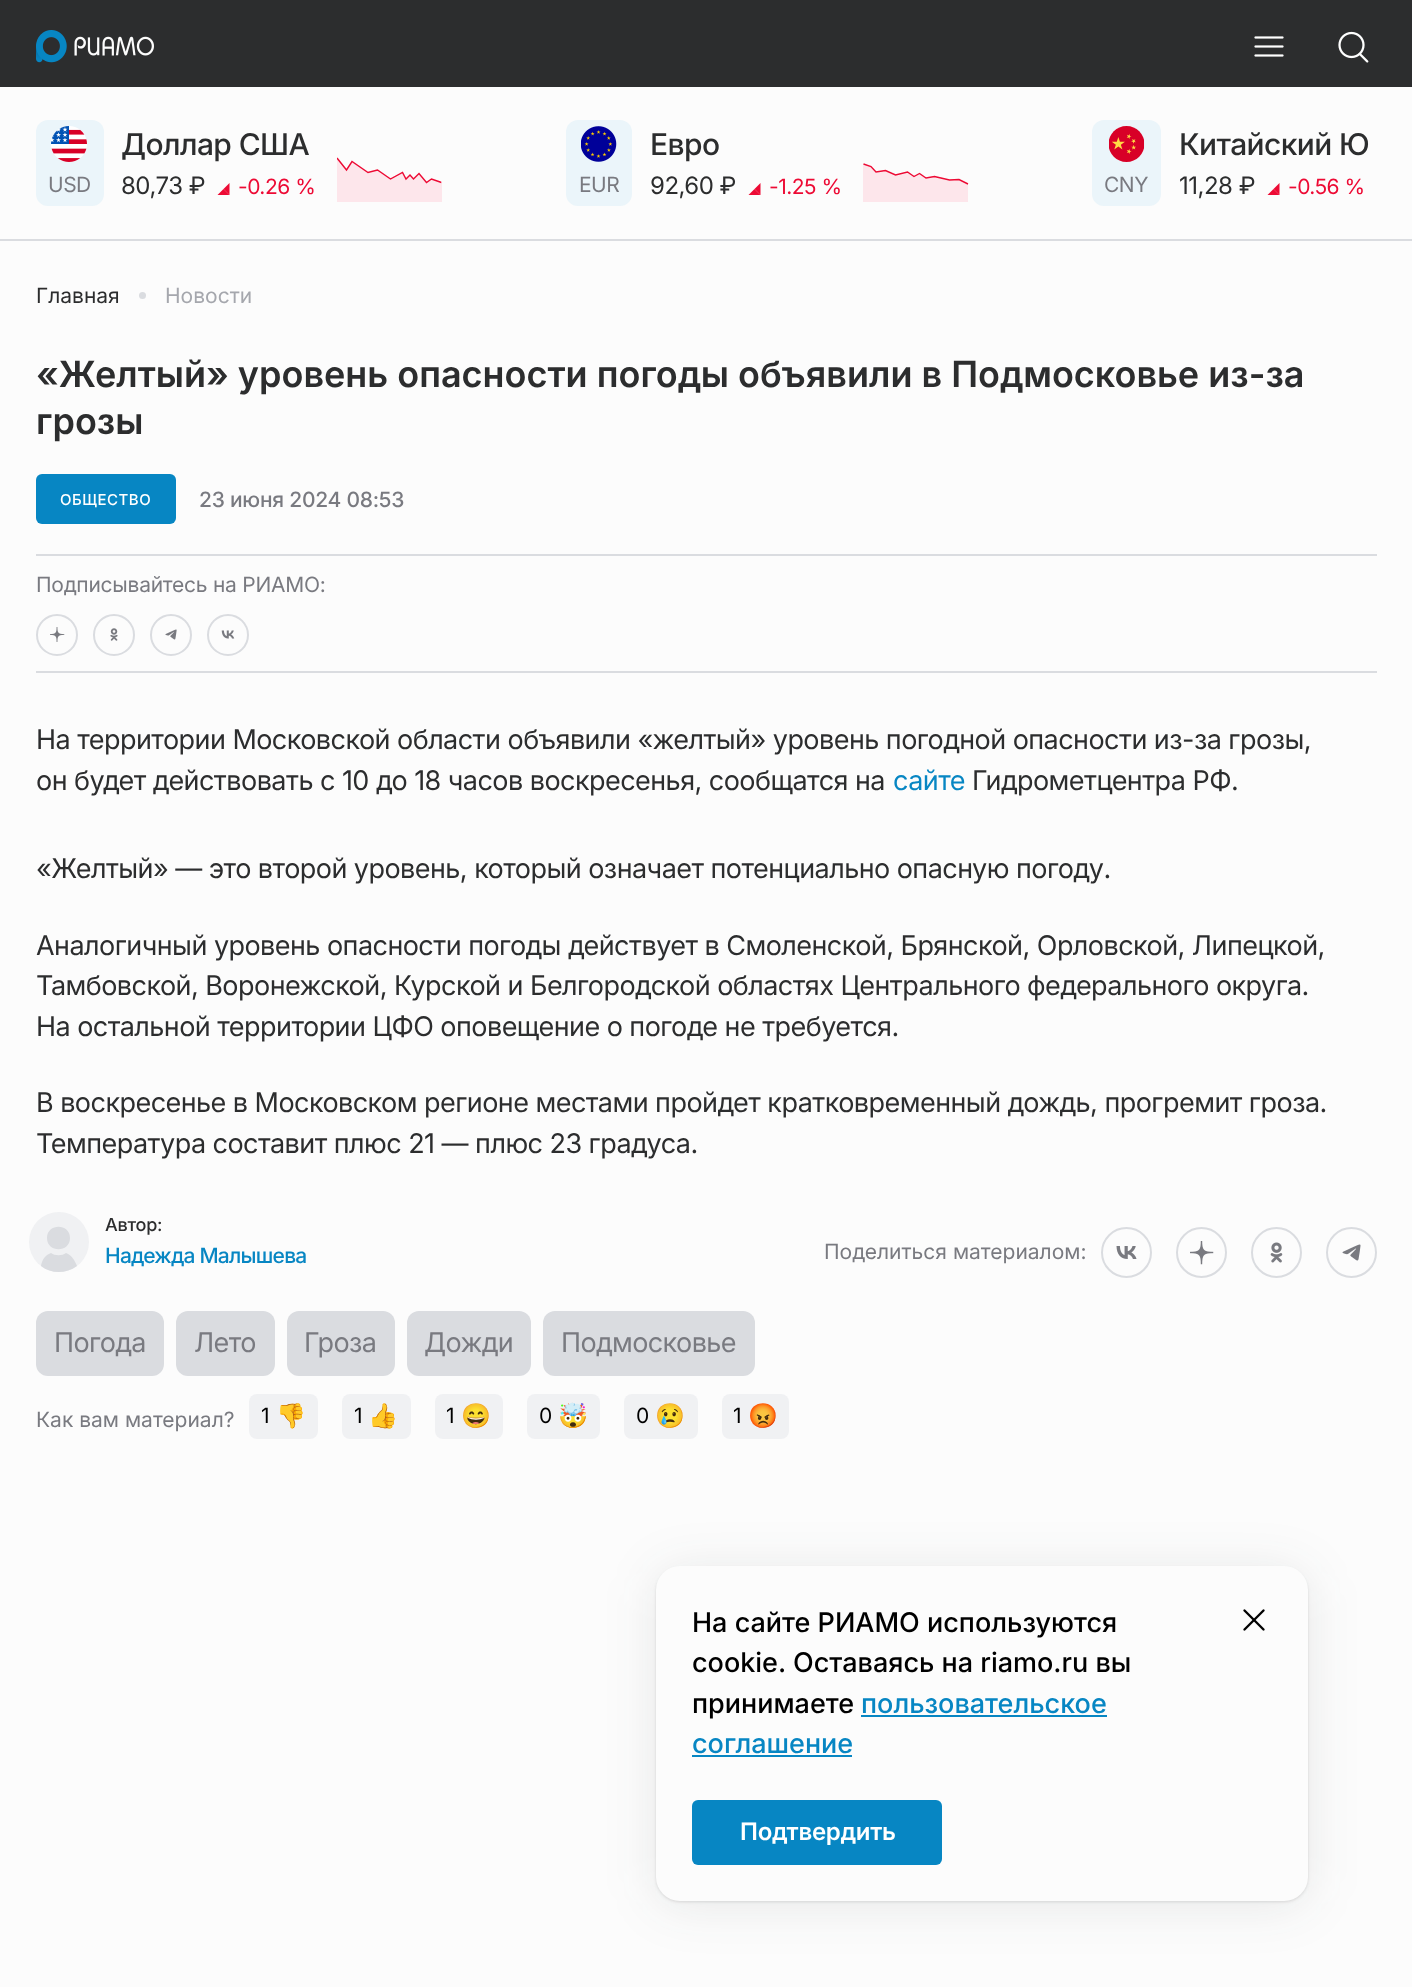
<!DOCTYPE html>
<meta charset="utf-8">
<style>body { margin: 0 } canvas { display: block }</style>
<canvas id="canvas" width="1412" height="1987"></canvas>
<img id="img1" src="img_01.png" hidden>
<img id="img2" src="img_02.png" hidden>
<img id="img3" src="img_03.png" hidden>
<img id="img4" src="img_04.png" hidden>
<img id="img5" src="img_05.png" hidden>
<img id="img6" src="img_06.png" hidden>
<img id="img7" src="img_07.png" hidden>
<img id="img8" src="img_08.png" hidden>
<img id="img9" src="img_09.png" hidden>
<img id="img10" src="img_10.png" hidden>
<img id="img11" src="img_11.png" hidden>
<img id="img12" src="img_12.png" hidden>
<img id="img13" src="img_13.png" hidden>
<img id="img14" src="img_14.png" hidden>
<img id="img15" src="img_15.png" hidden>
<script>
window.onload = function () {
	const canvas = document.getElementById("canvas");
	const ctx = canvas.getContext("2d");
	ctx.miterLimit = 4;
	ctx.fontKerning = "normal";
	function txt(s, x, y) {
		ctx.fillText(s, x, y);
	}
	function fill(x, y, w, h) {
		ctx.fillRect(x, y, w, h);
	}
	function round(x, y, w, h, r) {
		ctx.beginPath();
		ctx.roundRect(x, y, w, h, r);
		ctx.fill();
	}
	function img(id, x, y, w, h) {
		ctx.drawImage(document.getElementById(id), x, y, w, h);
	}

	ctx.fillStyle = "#FCFCFC";
	fill(0, 0, 1412, 1987);
	ctx.fillStyle = "#2C2D2E";
	fill(0, 0, 1412, 87);
	img("img1", 36, 30, 118, 33);
	img("img2", 1254, 36, 30, 21);
	img("img3", 1338, 31, 31, 32);
	ctx.fillStyle = "#DADCE0";
	fill(0, 239, 1412, 2);
	ctx.fillStyle = "#EBF5FA";
	round(36, 120, 68, 86, 12);
	img("img4", 51, 126, 36, 36);
	ctx.fillStyle = "#ED0A34";
	ctx.beginPath();
	ctx.moveTo(229.5, 183);
	ctx.lineTo(229.5, 195);
	ctx.lineTo(223.5, 189);
	ctx.closePath();
	ctx.fill();
	ctx.beginPath();
	ctx.moveTo(229.5, 195);
	ctx.lineTo(217.5, 195);
	ctx.lineTo(223.5, 189);
	ctx.closePath();
	ctx.fill();
	ctx.fillStyle = "#FDE6EB";
	ctx.beginPath();
	ctx.moveTo(346, 169);
	ctx.lineTo(352, 162);
	ctx.lineTo(368, 172);
	ctx.lineTo(377, 169);
	ctx.lineTo(390, 178);
	ctx.lineTo(403, 172);
	ctx.lineTo(406, 178);
	ctx.lineTo(410, 175);
	ctx.lineTo(413, 178);
	ctx.lineTo(419, 173);
	ctx.lineTo(426, 182);
	ctx.lineTo(432, 178);
	ctx.lineTo(442, 182);
	ctx.lineTo(442, 202);
	ctx.lineTo(337, 202);
	ctx.lineTo(337, 158);
	ctx.closePath();
	ctx.fill();
	ctx.save();
	ctx.beginPath();
	ctx.moveTo(337, 136.5);
	ctx.lineTo(441.5, 136.5);
	ctx.lineTo(441.5, 202.5);
	ctx.lineTo(337, 202.5);
	ctx.closePath();
	ctx.clip();
	ctx.beginPath();
	ctx.moveTo(337, 158);
	ctx.lineTo(346.5, 170);
	ctx.lineTo(352, 161.5);
	ctx.lineTo(368, 172.5);
	ctx.lineTo(377.5, 170);
	ctx.lineTo(390.5, 179);
	ctx.lineTo(402.5, 172.5);
	ctx.lineTo(406, 179);
	ctx.lineTo(410, 175);
	ctx.lineTo(413.5, 179);
	ctx.lineTo(419, 173.5);
	ctx.lineTo(426.5, 182.5);
	ctx.lineTo(431.5, 179);
	ctx.lineTo(441.5, 182.5);
	ctx.strokeStyle = "#ED0A34";
	ctx.lineWidth = 1.4;
	ctx.stroke();
	ctx.restore();
	ctx.fillStyle = "#EBF5FA";
	round(566, 120, 66, 86, 12);
	img("img5", 581, 126, 36, 36);
	ctx.fillStyle = "#ED0A34";
	ctx.beginPath();
	ctx.moveTo(760.5, 183);
	ctx.lineTo(760.5, 195);
	ctx.lineTo(754.5, 189);
	ctx.closePath();
	ctx.fill();
	ctx.beginPath();
	ctx.moveTo(760.5, 195);
	ctx.lineTo(748.5, 195);
	ctx.lineTo(754.5, 189);
	ctx.closePath();
	ctx.fill();
	ctx.fillStyle = "#FDE6EB";
	ctx.beginPath();
	ctx.moveTo(885, 170);
	ctx.lineTo(876, 172);
	ctx.lineTo(871, 167);
	ctx.lineTo(863, 164);
	ctx.lineTo(863, 202);
	ctx.lineTo(968, 202);
	ctx.lineTo(968, 184);
	ctx.lineTo(959, 179);
	ctx.lineTo(950, 180);
	ctx.lineTo(935, 176);
	ctx.lineTo(926, 178);
	ctx.lineTo(920, 173);
	ctx.lineTo(914, 176);
	ctx.lineTo(908, 172);
	ctx.lineTo(895, 175);
	ctx.closePath();
	ctx.fill();
	ctx.beginPath();
	ctx.moveTo(863.5, 164);
	ctx.lineTo(871, 166.5);
	ctx.lineTo(876, 172);
	ctx.lineTo(885.5, 170.5);
	ctx.lineTo(895.5, 175);
	ctx.lineTo(907.5, 172);
	ctx.lineTo(914, 176.5);
	ctx.lineTo(919.5, 173.5);
	ctx.lineTo(926, 178);
	ctx.lineTo(934.5, 176.5);
	ctx.lineTo(949.5, 180);
	ctx.lineTo(959, 179.5);
	ctx.lineTo(968, 184);
	ctx.strokeStyle = "#ED0A34";
	ctx.lineWidth = 1.4;
	ctx.stroke();
	ctx.fillStyle = "#EBF5FA";
	round(1092, 120, 69, 86, 12);
	img("img6", 1109, 126, 36, 36);
	ctx.fillStyle = "#ED0A34";
	ctx.beginPath();
	ctx.moveTo(1279.5, 183);
	ctx.lineTo(1279.5, 195);
	ctx.lineTo(1273.5, 189);
	ctx.closePath();
	ctx.fill();
	ctx.beginPath();
	ctx.moveTo(1279.5, 195);
	ctx.lineTo(1267.5, 195);
	ctx.lineTo(1273.5, 189);
	ctx.closePath();
	ctx.fill();
	ctx.fillStyle = "#DADCE0";
	ctx.beginPath();
	ctx.arc(142.5, 295.5, 3.5, 0, Math.PI * 2);
	ctx.fill();
	ctx.fillStyle = "#0786C3";
	round(36, 474, 140, 50, 6);
	ctx.fillStyle = "#DADCE0";
	fill(36, 554, 1341, 2);
	fill(36, 671, 1341, 2);
	ctx.beginPath();
	ctx.arc(57, 635, 20, 0, Math.PI * 2);
	ctx.strokeStyle = "#DADCE0";
	ctx.lineWidth = 2;
	ctx.stroke();
	img("img7", 50, 627, 15, 15);
	ctx.beginPath();
	ctx.arc(114, 635, 20, 0, Math.PI * 2);
	ctx.stroke();
	img("img8", 110, 628, 8, 13);
	ctx.beginPath();
	ctx.arc(171, 635, 20, 0, Math.PI * 2);
	ctx.stroke();
	img("img9", 165, 629, 12, 11);
	ctx.beginPath();
	ctx.arc(228, 635, 20, 0, Math.PI * 2);
	ctx.stroke();
	img("img10", 221, 630, 14, 9);
	ctx.fillStyle = "#F0F1F3";
	ctx.beginPath();
	ctx.arc(59, 1242, 30, 0, Math.PI * 2);
	ctx.fill();
	ctx.fillStyle = "#DADCE0";
	ctx.beginPath();
	ctx.moveTo(51, 1253);
	ctx.bezierCurveTo(45, 1255, 42, 1260, 41, 1266);
	ctx.bezierCurveTo(51, 1274, 66, 1274, 77, 1266);
	ctx.bezierCurveTo(75, 1261, 72, 1255, 66, 1253);
	ctx.bezierCurveTo(62, 1256, 55, 1256, 51, 1253);
	ctx.closePath();
	ctx.moveTo(70, 1238);
	ctx.bezierCurveTo(70, 1253, 47, 1253, 47, 1238);
	ctx.bezierCurveTo(47, 1223, 70, 1223, 70, 1238);
	ctx.closePath();
	ctx.fill("evenodd");
	ctx.beginPath();
	ctx.arc(1126.5, 1252.5, 24.5, 0, Math.PI * 2);
	ctx.stroke();
	img("img11", 1116, 1246, 21, 13);
	ctx.beginPath();
	ctx.arc(1201.5, 1252.5, 24.5, 0, Math.PI * 2);
	ctx.stroke();
	img("img12", 1190, 1241, 24, 24);
	ctx.beginPath();
	ctx.arc(1276.5, 1252.5, 24.5, 0, Math.PI * 2);
	ctx.stroke();
	img("img13", 1270, 1242, 13, 21);
	ctx.beginPath();
	ctx.arc(1351.5, 1252.5, 24.5, 0, Math.PI * 2);
	ctx.stroke();
	img("img14", 1342, 1244, 19, 17);
	round(36, 1311, 128, 65, 12);
	round(176, 1311, 99, 65, 12);
	round(287, 1311, 108, 65, 12);
	round(407, 1311, 124, 65, 12);
	round(543, 1311, 212, 65, 12);
	ctx.fillStyle = "#F0F1F3";
	round(249, 1394, 69, 45, 8);
	round(342, 1394, 69, 45, 8);
	round(435, 1394, 68, 45, 8);
	round(527, 1394, 73, 45, 8);
	round(624, 1394, 74, 45, 8);
	round(722, 1394, 67, 45, 8);
	ctx.fillStyle = "rgba(44, 45, 46, 0.14)";
	ctx.filter = "blur(1.5px)";
	ctx.beginPath();
	ctx.roundRect(656, 1568, 652, 334, 24);
	ctx.fill();
	ctx.filter = "none";
	ctx.fillStyle = "rgba(44, 45, 46, 0.1)";
	ctx.filter = "blur(25.5px)";
	ctx.beginPath();
	ctx.roundRect(656, 1571, 652, 334, 24);
	ctx.fill();
	ctx.filter = "none";
	ctx.fillStyle = "#FCFCFC";
	round(656, 1566, 652, 335, 24);
	ctx.fillStyle = "#0786C3";
	fill(861, 1715, 246, 2);
	fill(692, 1755, 160, 2);
	img("img15", 1243, 1609, 22, 22);
	round(692, 1800, 250, 65, 6);
	ctx.letterSpacing = "-0.5px";
	ctx.font = "21px Inter";
	ctx.fillStyle = "#797A80";
	txt("USD", 48, 192);
	ctx.letterSpacing = "-0.6px";
	ctx.font = "500 30px Inter";
	ctx.fillStyle = "#2C2D2E";
	txt("Доллар США", 121, 155);
	ctx.letterSpacing = "-0.5px";
	ctx.font = "24px Inter";
	txt("80,73 ₽", 121, 194);
	ctx.font = "21px Inter";
	ctx.fillStyle = "#ED0A34";
	txt("-0.26 %", 238, 194);
	ctx.fillStyle = "#797A80";
	txt("EUR", 579, 192);
	ctx.letterSpacing = "-0.6px";
	ctx.font = "500 30px Inter";
	ctx.fillStyle = "#2C2D2E";
	txt("Евро", 650, 155);
	ctx.letterSpacing = "-0.5px";
	ctx.font = "24px Inter";
	txt("92,60 ₽", 650, 194);
	ctx.font = "21px Inter";
	ctx.fillStyle = "#ED0A34";
	txt("-1.25 %", 769, 194);
	ctx.fillStyle = "#797A80";
	txt("CNY", 1104, 192);
	ctx.letterSpacing = "-0.6px";
	ctx.font = "500 30px Inter";
	ctx.fillStyle = "#2C2D2E";
	txt("Китайский Ю", 1179, 155);
	ctx.letterSpacing = "-0.5px";
	ctx.font = "24px Inter";
	txt("11,28 ₽", 1179, 194);
	ctx.font = "21px Inter";
	ctx.fillStyle = "#ED0A34";
	txt("-0.56 %", 1288, 194);
	ctx.letterSpacing = "0px";
	ctx.fillStyle = "#2C2D2E";
	txt("Главная", 36, 303);
	ctx.fillStyle = "#A5A7AD";
	txt("Новости", 165, 303);
	ctx.font = "600 36px Inter";
	ctx.fillStyle = "#2C2D2E";
	txt("«Желтый» уровень опасности погоды объявили в Подмосковье из-за", 36, 387);
	txt("грозы", 36, 434);
	ctx.letterSpacing = "0.5px";
	ctx.font = "500 15px Inter";
	ctx.fillStyle = "#FFFFFF";
	txt("ОБЩЕСТВО", 60, 505);
	ctx.letterSpacing = "-0.25px";
	ctx.font = "500 21px Inter";
	ctx.fillStyle = "#797A80";
	txt("23 июня 2024 08:53", 199, 507);
	ctx.font = "21px Inter";
	txt("Подписывайтесь на РИАМО:", 36, 592);
	ctx.letterSpacing = "-0.55px";
	ctx.font = "27px Inter";
	ctx.fillStyle = "#2C2D2E";
	txt("На территории Московской области объявили «желтый» уровень погодной опасности из-за грозы,", 36, 749);
	txt("он будет действовать с 10 до 18 часов воскресенья, сообщатся на", 36, 790);
	ctx.fillStyle = "#0786C3";
	txt("сайте", 893, 790);
	ctx.fillStyle = "#2C2D2E";
	txt("Гидрометцентра РФ.", 972, 790);
	txt("«Желтый» — это второй уровень, который означает потенциально опасную погоду.", 36, 878);
	txt("Аналогичный уровень опасности погоды действует в Смоленской, Брянской, Орловской, Липецкой,", 36, 955);
	txt("Тамбовской, Воронежской, Курской и Белгородской областях Центрального федерального округа.", 36, 995);
	txt("На остальной территории ЦФО оповещение о погоде не требуется.", 36, 1036);
	txt("В воскресенье в Московском регионе местами пройдет кратковременный дождь, прогремит гроза.", 36, 1112);
	txt("Температура составит плюс 21 — плюс 23 градуса.", 36, 1153);
	ctx.letterSpacing = "-0.25px";
	ctx.font = "500 18px Inter";
	txt("Автор:", 105, 1231);
	ctx.letterSpacing = "-0.75px";
	ctx.font = "500 21px Inter";
	ctx.fillStyle = "#0786C3";
	txt("Надежда Малышева", 105, 1263);
	ctx.letterSpacing = "0px";
	ctx.font = "21px Inter";
	ctx.fillStyle = "#797A80";
	txt("Поделиться материалом:", 824, 1259);
	ctx.letterSpacing = "-0.6px";
	ctx.font = "27px Inter";
	txt("Погода", 54, 1352);
	txt("Лето", 194, 1352);
	txt("Гроза", 304, 1352);
	txt("Дожди", 424, 1352);
	txt("Подмосковье", 561, 1352);
	ctx.letterSpacing = "0px";
	ctx.font = "21px Inter";
	txt("Как вам материал?", 36, 1427);
	ctx.fillStyle = "#000000";
	txt("1", 261, 1423);
	ctx.font = "24px Noto Color Emoji";
	txt("👎", 276, 1424);
	ctx.font = "21px Inter";
	txt("1", 354, 1423);
	ctx.font = "24px Noto Color Emoji";
	txt("👍", 368, 1424);
	ctx.font = "21px Inter";
	txt("1", 446, 1423);
	ctx.font = "24px Noto Color Emoji";
	txt("😄", 461, 1424);
	ctx.font = "21px Inter";
	txt("0", 539, 1423);
	ctx.font = "24px Noto Color Emoji";
	txt("🤯", 558, 1424);
	ctx.font = "21px Inter";
	txt("0", 636, 1423);
	ctx.font = "24px Noto Color Emoji";
	txt("😢", 655, 1424);
	ctx.font = "21px Inter";
	txt("1", 733, 1423);
	ctx.font = "24px Noto Color Emoji";
	txt("😡", 748, 1424);
	ctx.font = "500 27px Inter";
	txt("На сайте РИАМО используются", 692, 1632);
	txt("cookie. Оставаясь на riamo.ru вы", 692, 1672);
	txt("принимаете", 692, 1713);
	ctx.fillStyle = "#0786C3";
	txt("пользовательское", 861, 1713);
	txt("соглашение", 692, 1753);
	ctx.letterSpacing = "-0.25px";
	ctx.font = "600 24px Inter";
	ctx.fillStyle = "#FFFFFF";
	txt("Подтвердить", 740, 1840);
};
</script>
